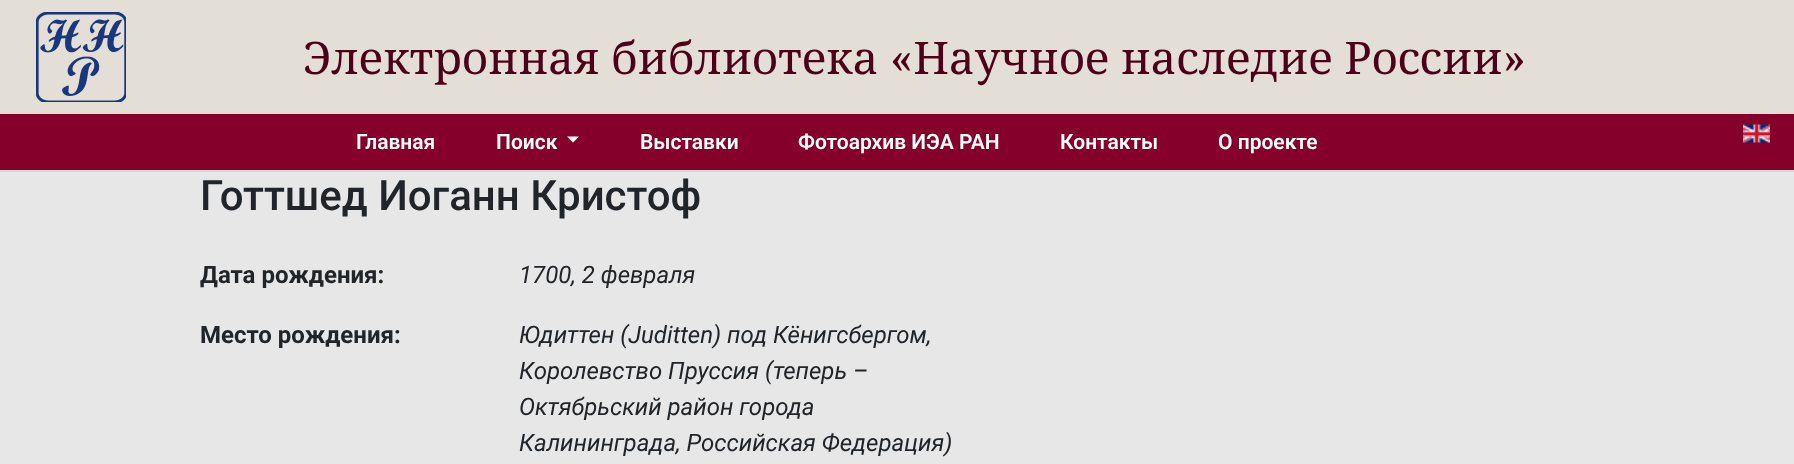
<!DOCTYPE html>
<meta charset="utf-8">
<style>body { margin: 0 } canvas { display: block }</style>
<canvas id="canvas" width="1794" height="464"></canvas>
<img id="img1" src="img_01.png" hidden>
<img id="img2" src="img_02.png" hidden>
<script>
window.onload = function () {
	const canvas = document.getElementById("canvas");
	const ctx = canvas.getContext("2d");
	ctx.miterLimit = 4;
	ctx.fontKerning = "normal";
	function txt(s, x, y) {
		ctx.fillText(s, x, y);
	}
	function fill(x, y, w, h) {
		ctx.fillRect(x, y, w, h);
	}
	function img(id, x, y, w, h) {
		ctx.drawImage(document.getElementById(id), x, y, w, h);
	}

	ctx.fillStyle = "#E7E7E7";
	fill(0, 0, 1794, 464);
	ctx.fillStyle = "#E3DED6";
	fill(0, 0, 1794, 114);
	img("img1", 36, 12, 90, 90);
	ctx.fillStyle = "#85002B";
	fill(0, 114, 1794, 56);
	ctx.fillStyle = "#D7DADD";
	fill(0, 170, 1794, 2);
	ctx.fillStyle = "#FFFFFF";
	ctx.beginPath();
	ctx.moveTo(567, 136.5);
	ctx.lineTo(579, 136.5);
	ctx.lineTo(573, 142.5);
	ctx.closePath();
	ctx.fill();
	img("img2", 1743, 124, 27, 19);
	ctx.font = "45px Noto Serif";
	ctx.fillStyle = "#4F0019";
	txt("Электронная библиотека «Научное наследие России»", 303, 74);
	ctx.font = "600 21px Roboto";
	ctx.fillStyle = "#FFFFFF";
	txt("Главная", 356, 149);
	txt("Поиск", 496, 149);
	txt("Выставки", 640, 149);
	txt("Фотоархив ИЭА РАН", 798, 149);
	txt("Контакты", 1060, 149);
	txt("О проекте", 1218, 149);
	ctx.font = "500 42px Roboto";
	ctx.fillStyle = "#212529";
	txt("Готтшед Иоганн Кристоф", 200, 210);
	ctx.font = "bold 24px Roboto";
	txt("Дата рождения:", 200, 283);
	ctx.font = "italic 24px Roboto";
	txt("1700, 2 февраля", 519, 283);
	ctx.font = "bold 24px Roboto";
	txt("Место рождения:", 200, 343);
	ctx.font = "italic 24px Roboto";
	txt("Юдиттен (Juditten) под Кёнигсбергом,", 519, 343);
	txt("Королевство Пруссия (теперь –", 519, 379);
	txt("Октябрьский район города", 519, 415);
	txt("Калининграда, Российская Федерация)", 519, 451);
};
</script>
